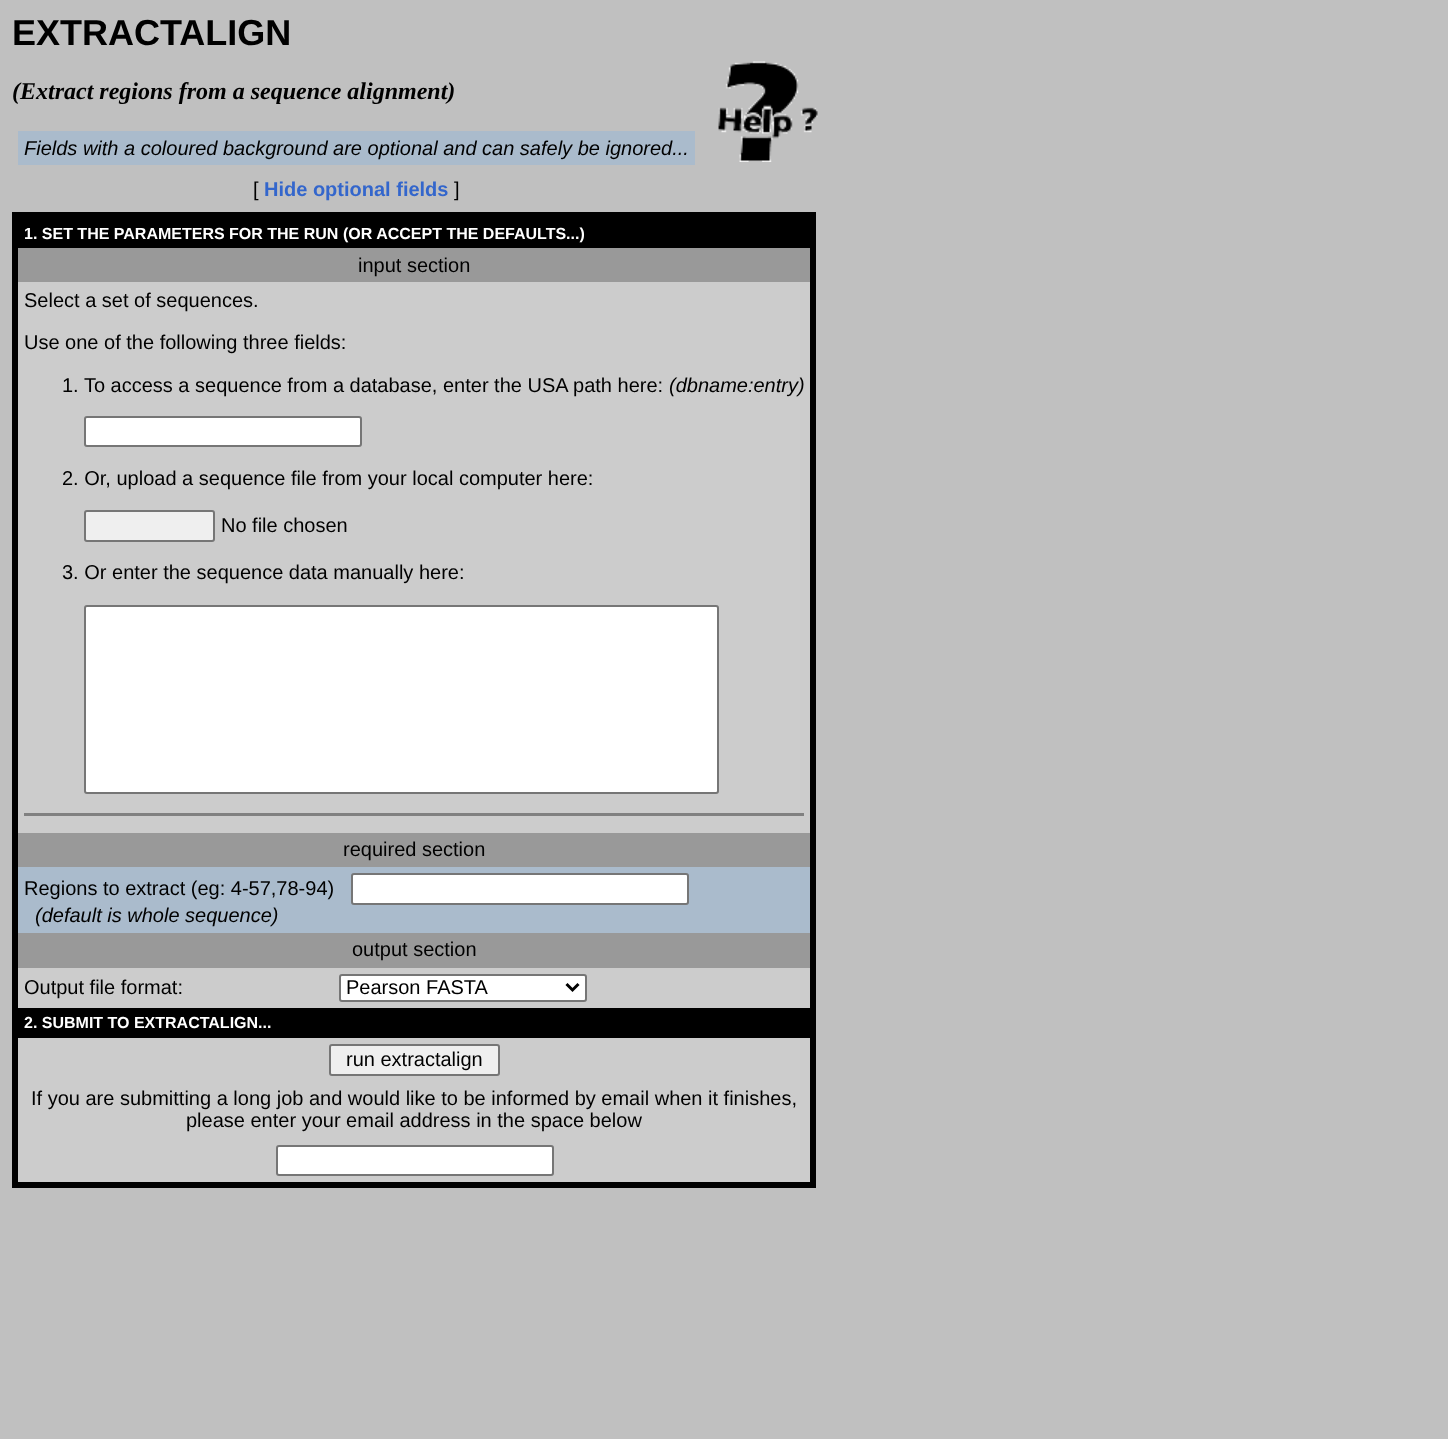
<!DOCTYPE html>
<meta charset="utf-8">
<style>body { margin: 0 } canvas { display: block }</style>
<canvas id="canvas" width="1448" height="1439"></canvas>
<img id="img1" src="img_01.png" hidden>
<script>
window.onload = function () {
	const canvas = document.getElementById("canvas");
	const ctx = canvas.getContext("2d");
	ctx.miterLimit = 4;
	ctx.fontKerning = "normal";
	function txt(s, x, y) {
		ctx.fillText(s, x, y);
	}
	function fill(x, y, w, h) {
		ctx.fillRect(x, y, w, h);
	}
	function img(id, x, y, w, h) {
		ctx.drawImage(document.getElementById(id), x, y, w, h);
	}

	ctx.fillStyle = "#C0C0C0";
	fill(0, 0, 1448, 1439);
	img("img1", 718, 61, 100, 101);
	ctx.fillStyle = "#AABBCC";
	fill(18, 131, 677, 34);
	ctx.fillStyle = "#000000";
	fill(12, 212, 804, 976);
	ctx.fillStyle = "#999999";
	fill(18, 248, 792, 34);
	ctx.fillStyle = "#CCCCCC";
	fill(18, 282, 792, 551);
	ctx.fillStyle = "#FFFFFF";
	ctx.beginPath();
	ctx.roundRect(85, 417, 276, 29, 2);
	ctx.fill();
	ctx.strokeStyle = "#767676";
	ctx.lineWidth = 2;
	ctx.stroke();
	ctx.fillStyle = "#EFEFEF";
	ctx.beginPath();
	ctx.roundRect(85, 511, 129, 30, 2);
	ctx.fill();
	ctx.stroke();
	ctx.fillStyle = "#FFFFFF";
	ctx.beginPath();
	ctx.roundRect(85, 606, 633, 187, 2);
	ctx.fill();
	ctx.stroke();
	ctx.fillStyle = "#808080";
	fill(24, 813, 780, 3);
	ctx.fillStyle = "#999999";
	fill(18, 833, 792, 34);
	ctx.fillStyle = "#AABBCC";
	fill(18, 867, 792, 66);
	ctx.fillStyle = "#FFFFFF";
	ctx.beginPath();
	ctx.roundRect(352, 874, 336, 30, 2);
	ctx.fill();
	ctx.stroke();
	ctx.fillStyle = "#999999";
	fill(18, 933, 792, 35);
	ctx.fillStyle = "#CCCCCC";
	fill(18, 968, 792, 40);
	ctx.fillStyle = "#FFFFFF";
	ctx.beginPath();
	ctx.roundRect(340, 975, 246, 26, 2);
	ctx.fill();
	ctx.stroke();
	ctx.beginPath();
	ctx.moveTo(566.5, 984);
	ctx.lineTo(572.5, 990);
	ctx.lineTo(578.5, 984);
	ctx.strokeStyle = "#000000";
	ctx.lineWidth = 3;
	ctx.stroke();
	ctx.fillStyle = "#CCCCCC";
	fill(18, 1038, 792, 144);
	ctx.fillStyle = "#EFEFEF";
	ctx.beginPath();
	ctx.roundRect(330, 1045, 169, 30, 2);
	ctx.fill();
	ctx.strokeStyle = "#767676";
	ctx.lineWidth = 2;
	ctx.stroke();
	ctx.fillStyle = "#FFFFFF";
	ctx.beginPath();
	ctx.roundRect(277, 1146, 276, 29, 2);
	ctx.fill();
	ctx.stroke();
	ctx.font = "bold 36px Liberation Sans";
	ctx.fillStyle = "#000000";
	txt("EXTRACTALIGN", 12, 45);
	ctx.font = "italic bold 24px Liberation Serif";
	txt("(Extract regions from a sequence alignment)", 12, 99);
	ctx.font = "italic 20px Liberation Sans";
	txt("Fields with a coloured background are optional and can safely be ignored...", 24, 155);
	ctx.font = "20px Liberation Sans";
	txt("[", 253, 196);
	ctx.font = "bold 20px Liberation Sans";
	ctx.fillStyle = "#3366CC";
	txt("Hide optional fields", 264, 196);
	ctx.font = "20px Liberation Sans";
	ctx.fillStyle = "#000000";
	txt("]", 454, 196);
	ctx.font = "bold 16px Liberation Sans";
	ctx.fillStyle = "#FFFFFF";
	txt("1. SET THE PARAMETERS FOR THE RUN", 24, 239);
	txt("(OR ACCEPT THE DEFAULTS...)", 343, 239);
	ctx.font = "20px Liberation Sans";
	ctx.fillStyle = "#000000";
	txt("input section", 358, 272);
	txt("Select a set of sequences.", 24, 307);
	txt("Use one of the following three fields:", 24, 349);
	txt("1. To access a sequence from a database, enter the USA path here:", 62, 392);
	ctx.font = "italic 20px Liberation Sans";
	txt("(dbname:entry)", 669, 392);
	ctx.font = "20px Liberation Sans";
	txt("2. Or, upload a sequence file from your local computer here:", 62, 485);
	txt("No file chosen", 221, 532);
	txt("3. Or enter the sequence data manually here:", 62, 579);
	txt("required section", 343, 856);
	txt("Regions to extract (eg: 4-57,78-94)", 24, 895);
	ctx.font = "italic 20px Liberation Sans";
	txt("(default is whole sequence)", 35, 922);
	ctx.font = "20px Liberation Sans";
	txt("output section", 352, 956);
	txt("Output file format:", 24, 994);
	txt("Pearson FASTA", 346, 994);
	ctx.font = "bold 16px Liberation Sans";
	ctx.fillStyle = "#FFFFFF";
	txt("2. SUBMIT TO EXTRACTALIGN...", 24, 1028);
	ctx.font = "20px Liberation Sans";
	ctx.fillStyle = "#000000";
	txt("run extractalign", 346, 1066);
	txt("If you are submitting a long job and would like to be informed by email when it finishes,", 31, 1105);
	txt("please enter your email address in the space below", 186, 1127);
};
</script>
